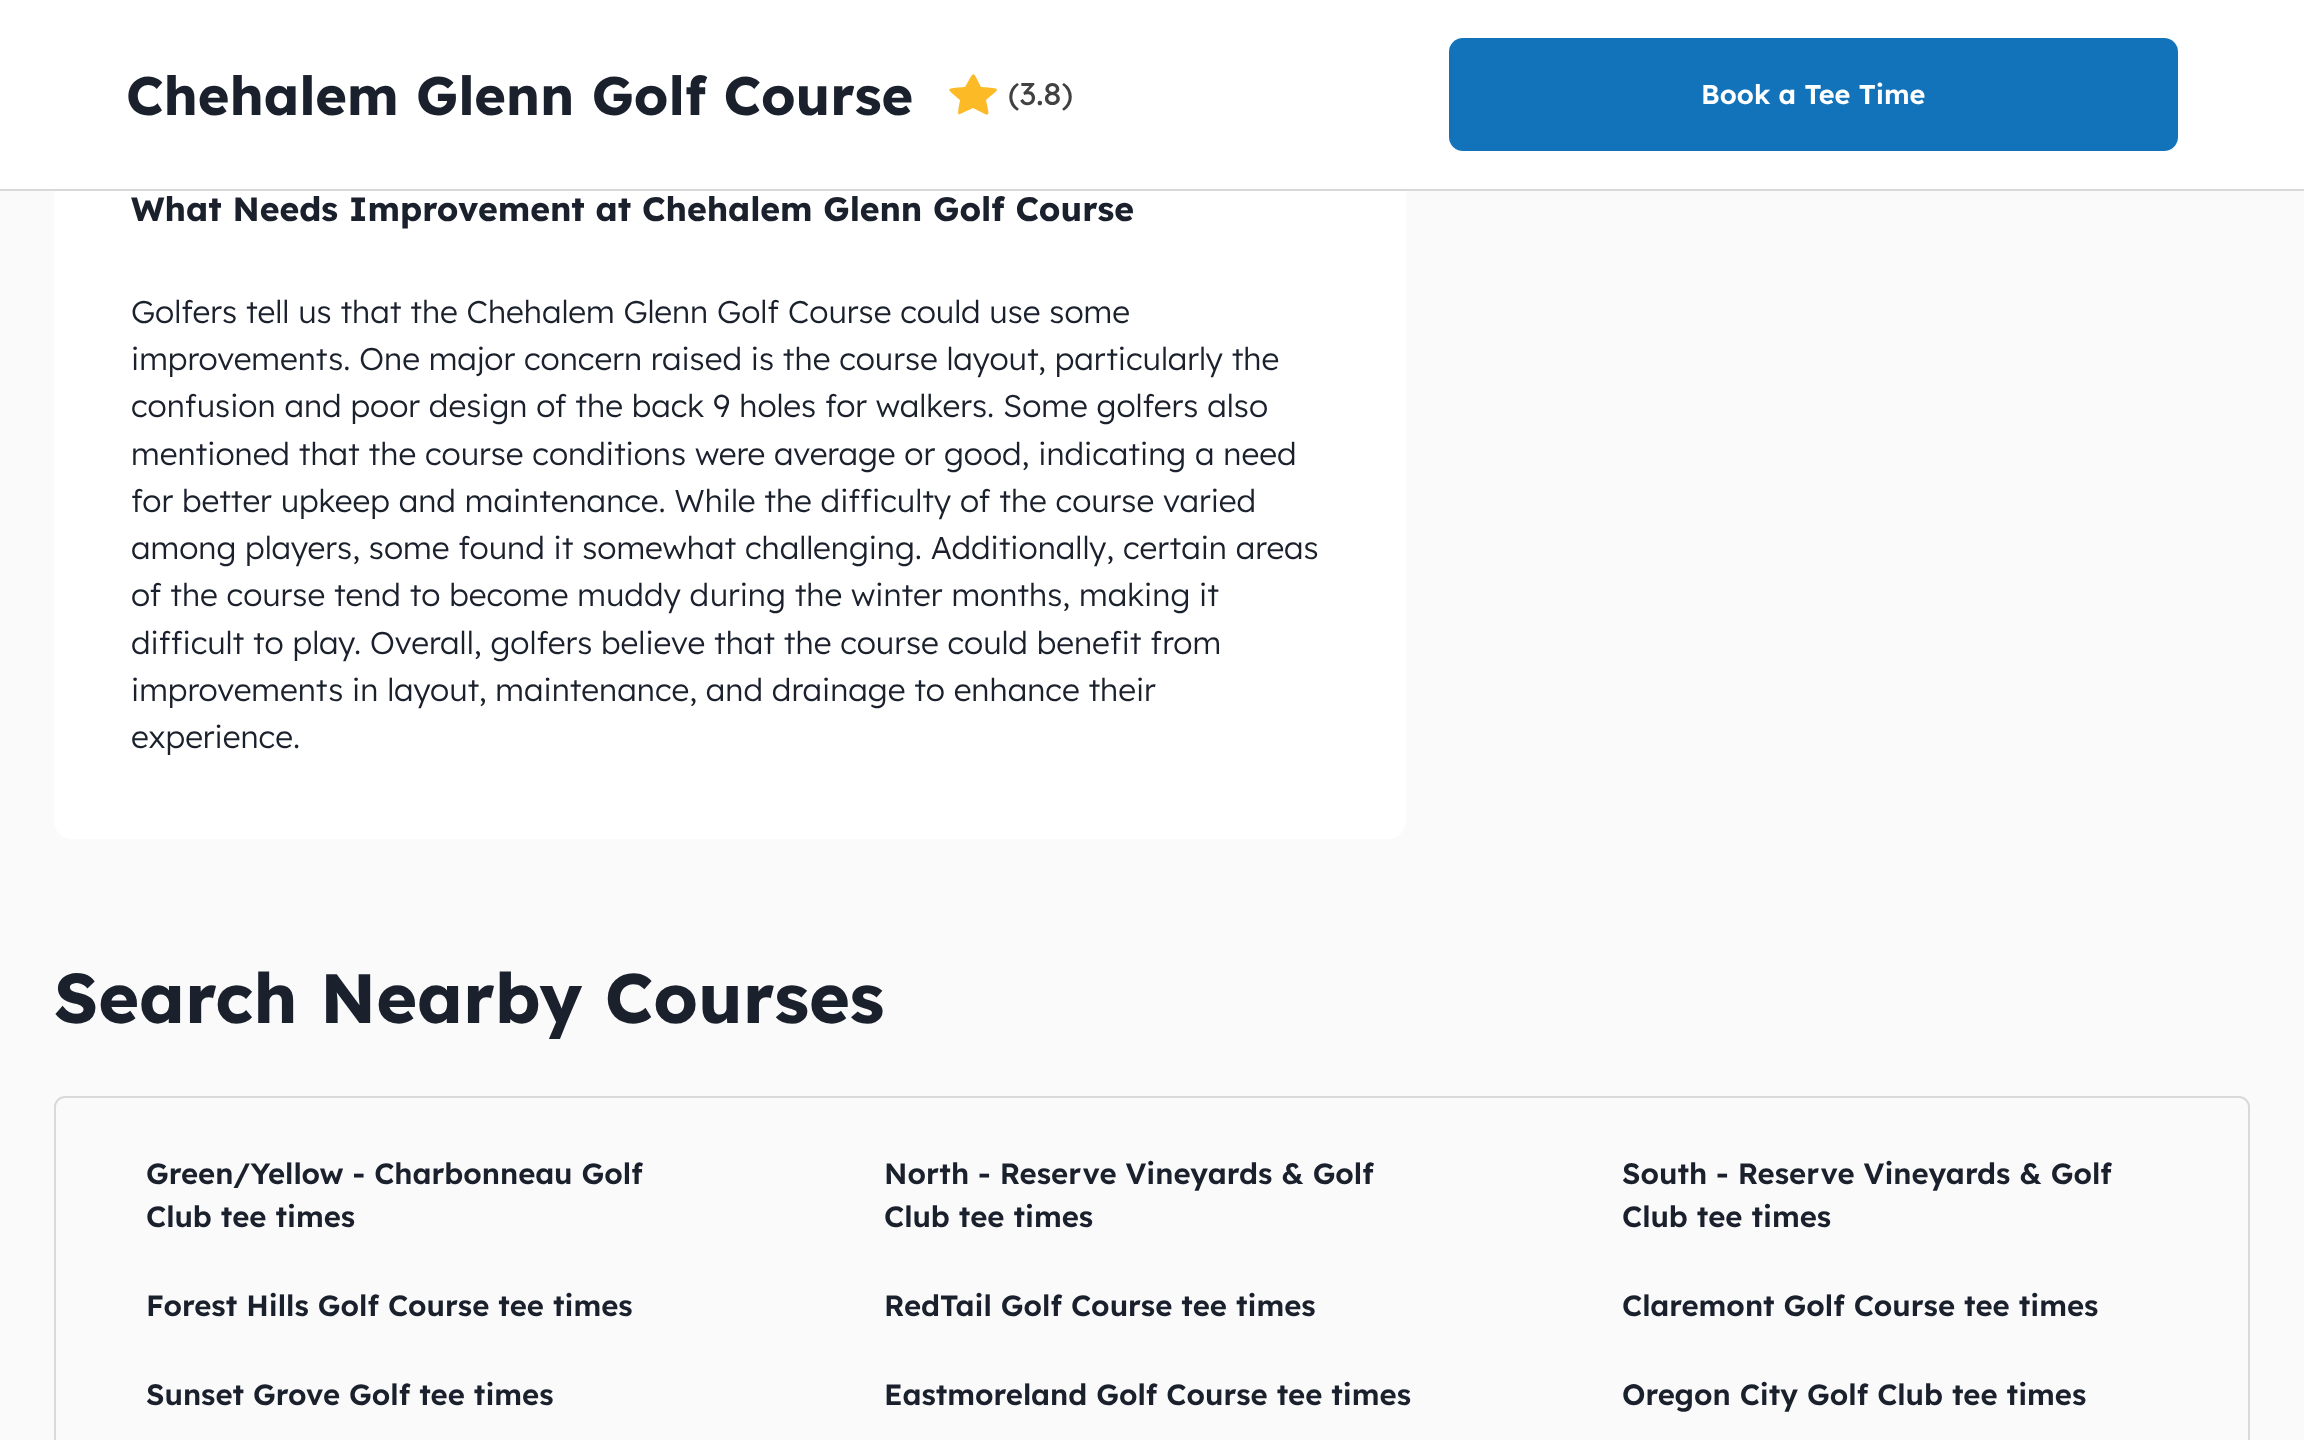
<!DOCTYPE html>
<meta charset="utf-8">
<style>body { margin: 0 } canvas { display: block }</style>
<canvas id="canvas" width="2304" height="1440"></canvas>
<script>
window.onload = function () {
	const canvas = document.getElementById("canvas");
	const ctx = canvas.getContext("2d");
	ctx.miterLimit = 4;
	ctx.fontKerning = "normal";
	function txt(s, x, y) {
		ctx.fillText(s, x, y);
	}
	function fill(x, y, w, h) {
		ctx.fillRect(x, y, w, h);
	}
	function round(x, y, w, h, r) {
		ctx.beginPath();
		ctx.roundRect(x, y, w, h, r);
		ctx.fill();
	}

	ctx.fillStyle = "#FAFAFA";
	fill(0, 0, 2304, 1440);
	ctx.fillStyle = "#FFFFFF";
	round(54, -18, 1352, 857, 18);
	fill(0, 0, 2304, 189);
	ctx.fillStyle = "#D8D8D8";
	fill(0, 189, 2304, 2);
	ctx.fillStyle = "#FDBA27";
	ctx.beginPath();
	ctx.moveTo(960, 114);
	ctx.bezierCurveTo(956, 117, 960, 102, 960, 100);
	ctx.bezierCurveTo(945, 87, 945, 89, 965, 87);
	ctx.bezierCurveTo(975, 70, 972, 70, 981, 87);
	ctx.bezierCurveTo(1002, 89, 1001, 87, 986, 100);
	ctx.bezierCurveTo(990, 119, 991, 117, 973, 108);
	ctx.closePath();
	ctx.fill();
	ctx.fillStyle = "#1273BA";
	round(1449, 38, 729, 113, 14);
	ctx.beginPath();
	ctx.roundRect(55, 1097, 2194, 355, 10);
	ctx.strokeStyle = "#D9D9D9";
	ctx.lineWidth = 2;
	ctx.stroke();
	ctx.font = "bold 54px Lexend";
	ctx.fillStyle = "#1A202C";
	txt("Chehalem Glenn Golf Course", 126, 115);
	ctx.font = "31.5px Lexend";
	ctx.fillStyle = "#414141";
	txt("(3.8)", 1008, 105);
	ctx.font = "600 27px Lexend";
	ctx.fillStyle = "#FFFFFF";
	txt("Book a Tee Time", 1701, 104);
	ctx.font = "bold 33.75px Lexend";
	ctx.fillStyle = "#1A202C";
	txt("What Needs Improvement at Chehalem Glenn Golf Course", 131, 221);
	ctx.font = "300 31.5px Lexend";
	txt("Golfers tell us that the Chehalem Glenn Golf Course could use some", 131, 323);
	txt("improvements. One major concern raised is the course layout, particularly the", 131, 370);
	txt("confusion and poor design of the back 9 holes for walkers. Some golfers also", 131, 417);
	txt("mentioned that the course conditions were average or good, indicating a need", 131, 465);
	txt("for better upkeep and maintenance. While the difficulty of the course varied", 131, 512);
	txt("among players, some found it somewhat challenging. Additionally, certain areas", 131, 559);
	txt("of the course tend to become muddy during the winter months, making it", 131, 606);
	txt("difficult to play. Overall, golfers believe that the course could benefit from", 131, 654);
	txt("improvements in layout, maintenance, and drainage to enhance their", 131, 701);
	txt("experience.", 131, 748);
	ctx.font = "bold 69.75px Lexend";
	txt("Search Nearby Courses", 54, 1023);
	ctx.font = "600 29.25px Lexend";
	txt("Green/Yellow - Charbonneau Golf", 146, 1184);
	txt("Club tee times", 146, 1227);
	txt("North - Reserve Vineyards & Golf", 884, 1184);
	txt("Club tee times", 884, 1227);
	txt("South - Reserve Vineyards & Golf", 1622, 1184);
	txt("Club tee times", 1622, 1227);
	txt("Forest Hills Golf Course tee times", 146, 1316);
	txt("RedTail Golf Course tee times", 884, 1316);
	txt("Claremont Golf Course tee times", 1622, 1316);
	txt("Sunset Grove Golf tee times", 146, 1405);
	txt("Eastmoreland Golf Course tee times", 884, 1405);
	txt("Oregon City Golf Club tee times", 1622, 1405);
};
</script>
